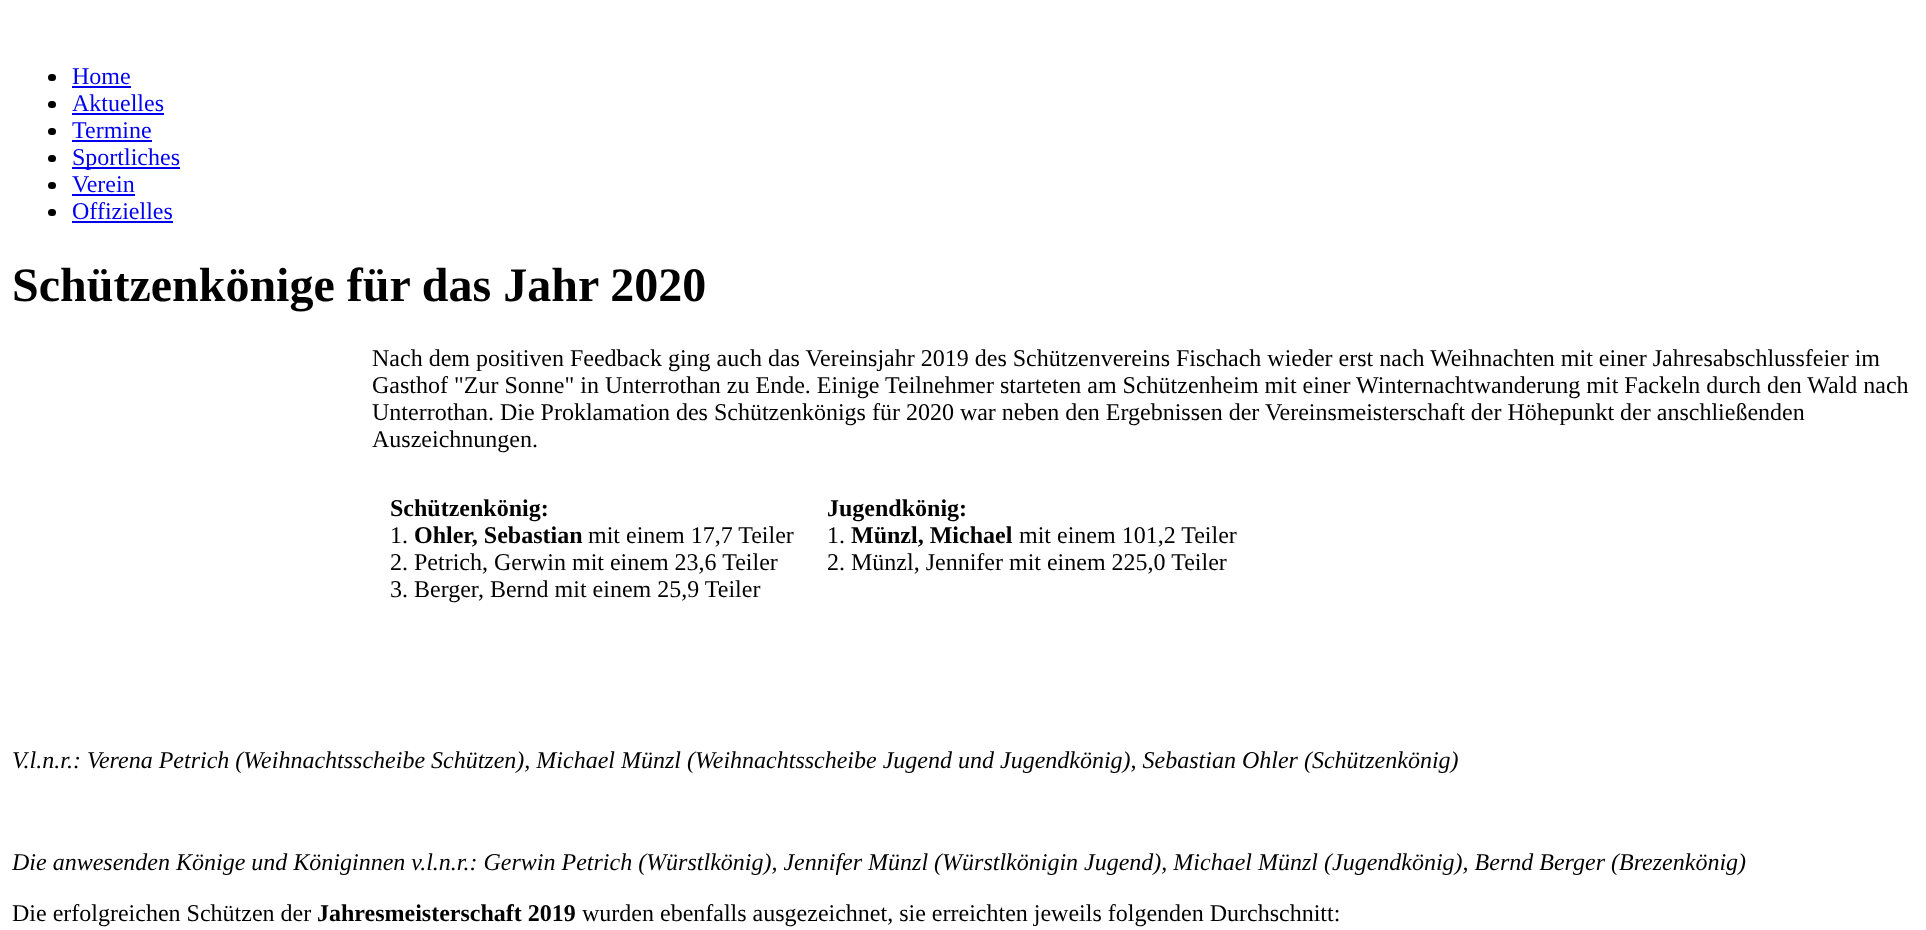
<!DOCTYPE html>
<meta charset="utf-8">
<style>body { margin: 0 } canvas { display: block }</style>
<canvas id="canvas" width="1926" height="930"></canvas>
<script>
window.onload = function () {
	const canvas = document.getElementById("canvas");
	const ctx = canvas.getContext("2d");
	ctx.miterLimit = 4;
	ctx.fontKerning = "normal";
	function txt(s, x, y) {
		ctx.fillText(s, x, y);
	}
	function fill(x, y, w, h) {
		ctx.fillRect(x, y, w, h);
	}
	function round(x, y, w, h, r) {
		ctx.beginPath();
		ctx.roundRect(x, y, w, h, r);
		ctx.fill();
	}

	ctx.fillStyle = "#FFFFFF";
	fill(0, 0, 1926, 930);
	ctx.fillStyle = "#000000";
	round(48, 74, 8, 7, 3.5);
	ctx.fillStyle = "#0000EE";
	fill(72, 86, 59, 2);
	ctx.fillStyle = "#000000";
	round(48, 101, 8, 7, 3.5);
	ctx.fillStyle = "#0000EE";
	fill(72, 113, 92, 2);
	ctx.fillStyle = "#000000";
	round(48, 128, 8, 7, 3.5);
	ctx.fillStyle = "#0000EE";
	fill(72, 140, 80, 2);
	ctx.fillStyle = "#000000";
	round(48, 155, 8, 7, 3.5);
	ctx.fillStyle = "#0000EE";
	fill(72, 167, 108, 2);
	ctx.fillStyle = "#000000";
	round(48, 182, 8, 7, 3.5);
	ctx.fillStyle = "#0000EE";
	fill(72, 194, 63, 2);
	ctx.fillStyle = "#000000";
	round(48, 209, 8, 7, 3.5);
	ctx.fillStyle = "#0000EE";
	fill(72, 221, 101, 2);
	ctx.font = "24px Liberation Serif";
	txt("Home", 72, 84);
	txt("Aktuelles", 72, 111);
	txt("Termine", 72, 138);
	txt("Sportliches", 72, 165);
	txt("Verein", 72, 192);
	txt("Offizielles", 72, 219);
	ctx.font = "bold 48px Liberation Serif";
	ctx.fillStyle = "#000000";
	txt("Schützenkönige für das Jahr 2020", 12, 301);
	ctx.font = "24px Liberation Serif";
	txt("Nach dem positiven Feedback ging auch das Vereinsjahr 2019 des Schützenvereins Fischach wieder erst nach Weihnachten mit einer Jahresabschlussfeier im", 372, 366);
	txt("Gasthof \"Zur Sonne\" in Unterrothan zu Ende. Einige Teilnehmer starteten am Schützenheim mit einer Winternachtwanderung mit Fackeln durch den Wald nach", 372, 393);
	txt("Unterrothan. Die Proklamation des Schützenkönigs für 2020 war neben den Ergebnissen der Vereinsmeisterschaft der Höhepunkt der anschließenden", 372, 420);
	txt("Auszeichnungen.", 372, 447);
	ctx.font = "bold 24px Liberation Serif";
	txt("Schützenkönig:", 390, 516);
	ctx.font = "24px Liberation Serif";
	txt("1.", 390, 543);
	ctx.font = "bold 24px Liberation Serif";
	txt("Ohler, Sebastian", 414, 543);
	ctx.font = "24px Liberation Serif";
	txt("mit einem 17,7 Teiler", 588, 543);
	txt("2. Petrich, Gerwin mit einem 23,6 Teiler", 390, 570);
	txt("3. Berger, Bernd mit einem 25,9 Teiler", 390, 597);
	ctx.font = "bold 24px Liberation Serif";
	txt("Jugendkönig:", 827, 516);
	ctx.font = "24px Liberation Serif";
	txt("1.", 827, 543);
	ctx.font = "bold 24px Liberation Serif";
	txt("Münzl, Michael", 851, 543);
	ctx.font = "24px Liberation Serif";
	txt("mit einem 101,2 Teiler", 1019, 543);
	txt("2. Münzl, Jennifer mit einem 225,0 Teiler", 827, 570);
	ctx.font = "italic 24px Liberation Serif";
	txt("V.l.n.r.: Verena Petrich (Weihnachtsscheibe Schützen), Michael Münzl (Weihnachtsscheibe Jugend und Jugendkönig), Sebastian Ohler (Schützenkönig)", 12, 768);
	txt("Die anwesenden Könige und Königinnen v.l.n.r.: Gerwin Petrich (Würstlkönig), Jennifer Münzl (Würstlkönigin Jugend), Michael Münzl (Jugendkönig), Bernd Berger (Brezenkönig)", 12, 870);
	ctx.font = "24px Liberation Serif";
	txt("Die erfolgreichen Schützen der", 12, 921);
	ctx.font = "bold 24px Liberation Serif";
	txt("Jahresmeisterschaft 2019", 317, 921);
	ctx.font = "24px Liberation Serif";
	txt("wurden ebenfalls ausgezeichnet, sie erreichten jeweils folgenden Durchschnitt:", 582, 921);
};
</script>
